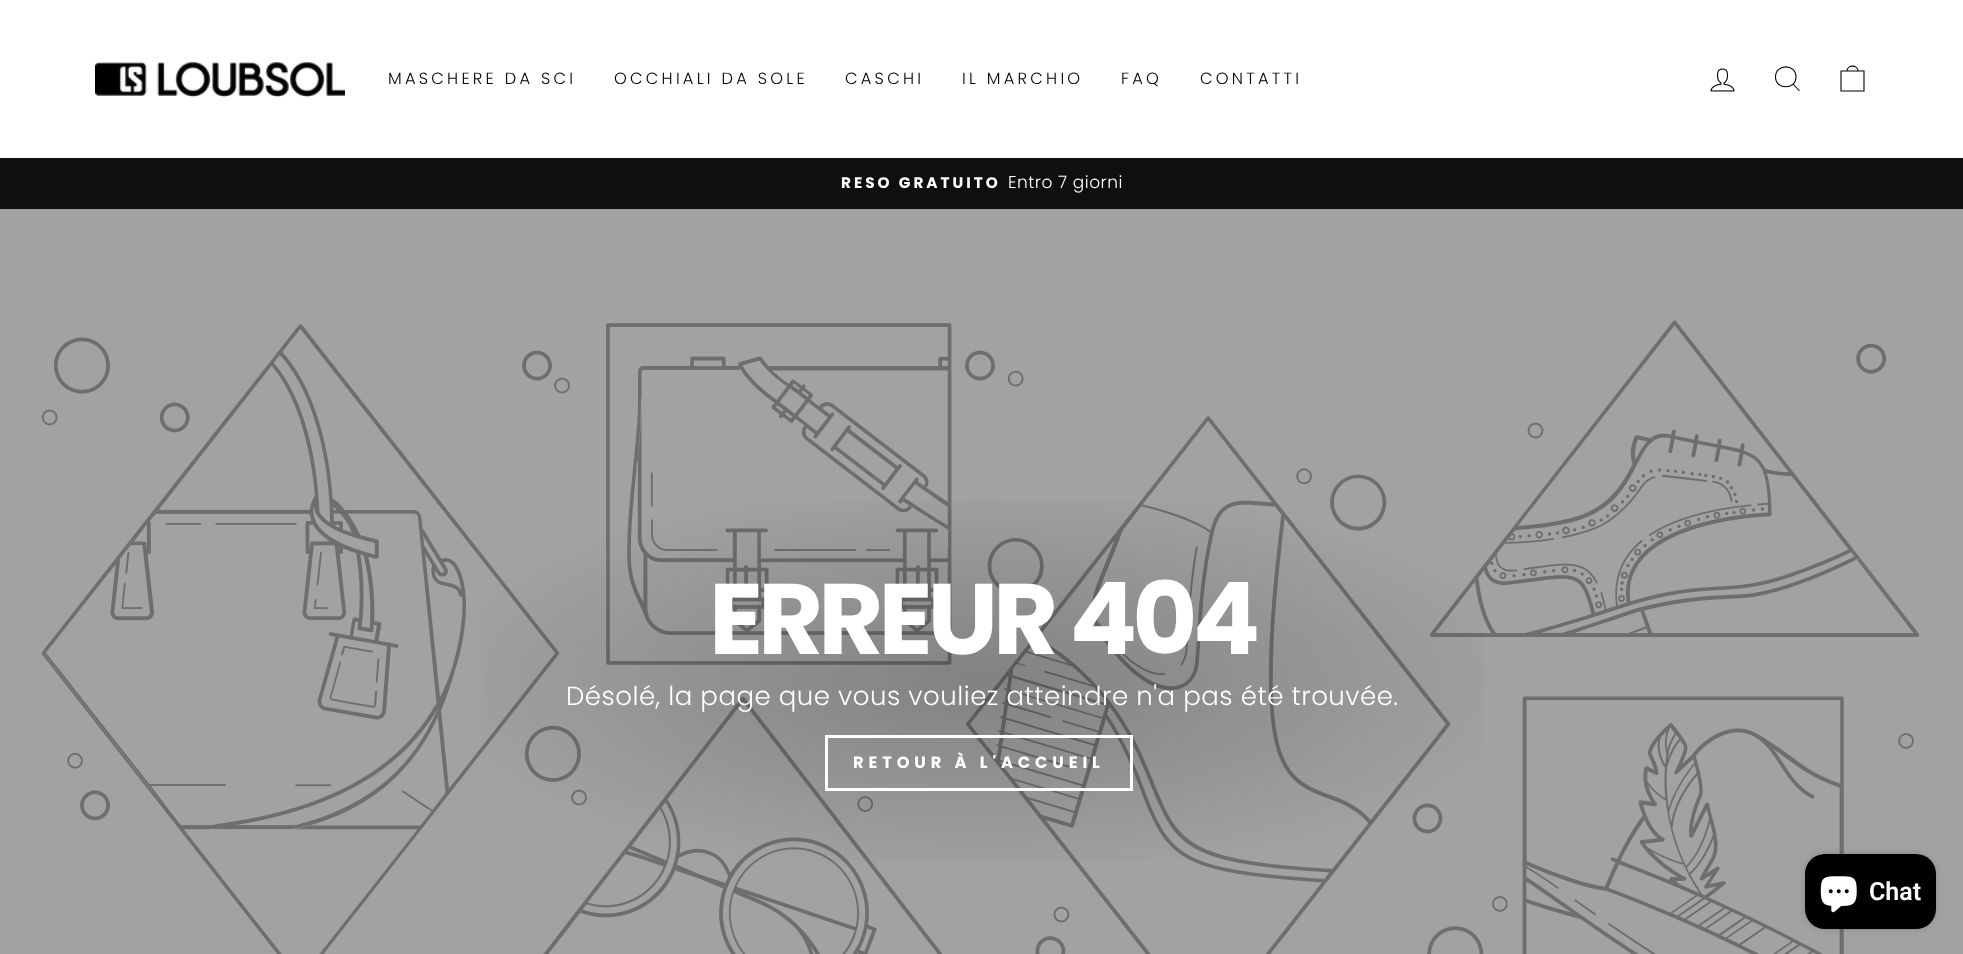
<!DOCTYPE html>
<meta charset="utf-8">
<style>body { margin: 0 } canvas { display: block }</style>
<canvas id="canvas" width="1963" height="954"></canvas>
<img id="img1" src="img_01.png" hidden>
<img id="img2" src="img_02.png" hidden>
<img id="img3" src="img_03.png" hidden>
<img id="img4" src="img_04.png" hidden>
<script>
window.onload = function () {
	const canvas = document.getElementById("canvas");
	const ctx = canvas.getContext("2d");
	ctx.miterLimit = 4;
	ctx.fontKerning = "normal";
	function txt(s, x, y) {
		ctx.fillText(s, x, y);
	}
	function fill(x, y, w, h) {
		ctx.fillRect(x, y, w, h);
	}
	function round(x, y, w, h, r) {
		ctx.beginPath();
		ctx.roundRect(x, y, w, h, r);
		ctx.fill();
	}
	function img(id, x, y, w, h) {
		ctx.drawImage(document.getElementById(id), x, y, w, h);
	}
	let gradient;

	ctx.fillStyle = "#0F0F0F";
	fill(0, 0, 1963, 954);
	ctx.fillStyle = "#FFFFFF";
	fill(0, 0, 1963, 158);
	img("img1", 95, 62, 250, 36);
	img("img2", 1710, 68, 25, 24);
	ctx.beginPath();
	ctx.moveTo(1796, 77);
	ctx.bezierCurveTo(1796, 90, 1775.5, 90, 1775.5, 77);
	ctx.bezierCurveTo(1775.5, 63.5, 1796, 63.5, 1796, 77);
	ctx.closePath();
	ctx.moveTo(1799.5, 91);
	ctx.lineTo(1793, 84);
	ctx.strokeStyle = "#000000";
	ctx.lineWidth = 1.1;
	ctx.stroke();
	ctx.beginPath();
	ctx.moveTo(1841, 71);
	ctx.lineTo(1864, 71);
	ctx.lineTo(1864, 91);
	ctx.lineTo(1841, 91);
	ctx.closePath();
	ctx.moveTo(1847, 71);
	ctx.bezierCurveTo(1847, 64.5, 1858, 64.5, 1858, 71);
	ctx.stroke();
	ctx.fillStyle = "#A2A2A2";
	fill(0, 209, 1963, 745);
	img("img3", 41, 320, 1879, 634);
	gradient = ctx.createRadialGradient(982, 1907.21, 0, 982, 1907.21, 941);
	gradient.addColorStop(0, "rgba(0, 0, 0, 0.2)");
	gradient.addColorStop(0.6, "rgba(0, 0, 0, 0)");
	ctx.fillStyle = gradient;
	ctx.beginPath();
	ctx.rect(481, 501, 1002, 360);
	ctx.save();
	ctx.clip();
	ctx.scale(1, 336 / 941);
	ctx.fillRect(0, 0, 1963, 2672);
	ctx.restore();
	ctx.strokeStyle = "#FFFFFF";
	ctx.lineWidth = 3;
	ctx.strokeRect(826.5, 736.5, 305, 53);
	ctx.fillStyle = "rgba(0, 0, 0, 0.15)";
	ctx.filter = "blur(3px)";
	ctx.beginPath();
	ctx.roundRect(1805, 854, 131, 75, 20);
	ctx.fill();
	ctx.filter = "none";
	ctx.fillStyle = "#000000";
	round(1805, 854, 131, 75, 20);
	img("img4", 1820, 876, 37, 37);
	ctx.letterSpacing = "3.25px";
	ctx.font = "300 16.25px Poppins";
	txt("MASCHERE DA SCI", 388, 84);
	txt("OCCHIALI DA SOLE", 614, 84);
	txt("CASCHI", 845, 84);
	txt("IL MARCHIO", 962, 84);
	txt("FAQ", 1121, 84);
	txt("CONTATTI", 1200, 84);
	ctx.letterSpacing = "3px";
	ctx.font = "bold 15.25px Poppins";
	ctx.fillStyle = "#FFFFFF";
	txt("RESO GRATUITO", 841, 188);
	ctx.letterSpacing = "0.5px";
	ctx.font = "300 17px Poppins";
	txt("Entro 7 giorni", 1008, 188);
	ctx.letterSpacing = "-5px";
	ctx.font = "bold 100px Poppins";
	txt("ERREUR 404", 709, 654);
	ctx.letterSpacing = "0.5px";
	ctx.font = "300 26px Poppins";
	txt("Désolé, la page que vous vouliez atteindre n'a pas été trouvée.", 566, 705);
	ctx.letterSpacing = "4.9px";
	ctx.font = "bold 16.25px Poppins";
	txt("RETOUR À L'ACCUEIL", 853, 768);
	ctx.letterSpacing = "0px";
	ctx.font = "600 25px Roboto";
	txt("Chat", 1869, 900);
};
</script>
